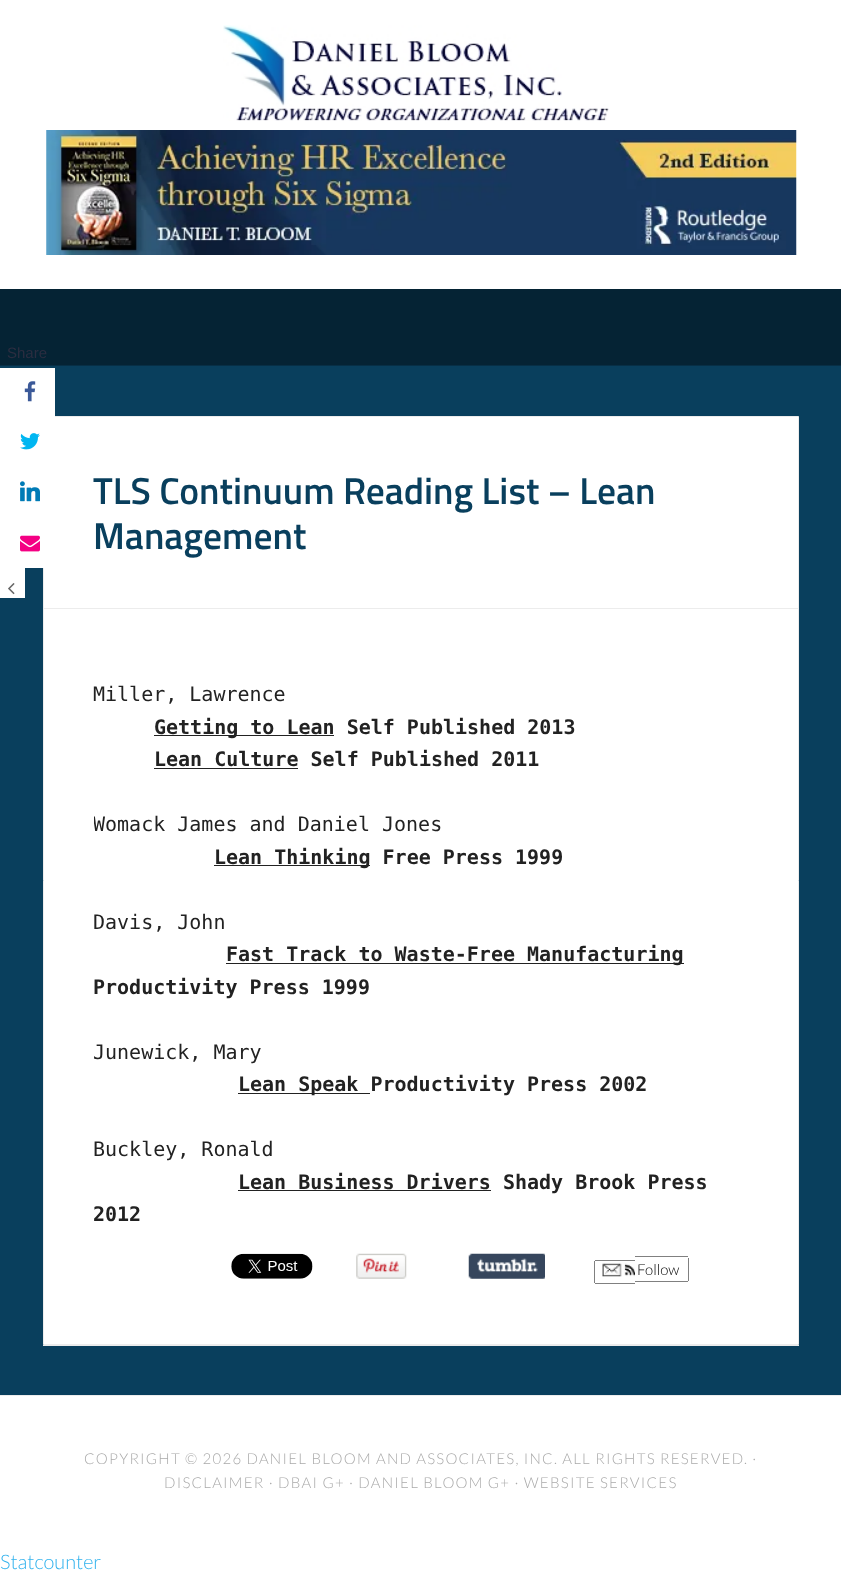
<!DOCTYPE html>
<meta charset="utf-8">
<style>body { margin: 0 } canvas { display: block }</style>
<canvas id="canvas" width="841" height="1593"></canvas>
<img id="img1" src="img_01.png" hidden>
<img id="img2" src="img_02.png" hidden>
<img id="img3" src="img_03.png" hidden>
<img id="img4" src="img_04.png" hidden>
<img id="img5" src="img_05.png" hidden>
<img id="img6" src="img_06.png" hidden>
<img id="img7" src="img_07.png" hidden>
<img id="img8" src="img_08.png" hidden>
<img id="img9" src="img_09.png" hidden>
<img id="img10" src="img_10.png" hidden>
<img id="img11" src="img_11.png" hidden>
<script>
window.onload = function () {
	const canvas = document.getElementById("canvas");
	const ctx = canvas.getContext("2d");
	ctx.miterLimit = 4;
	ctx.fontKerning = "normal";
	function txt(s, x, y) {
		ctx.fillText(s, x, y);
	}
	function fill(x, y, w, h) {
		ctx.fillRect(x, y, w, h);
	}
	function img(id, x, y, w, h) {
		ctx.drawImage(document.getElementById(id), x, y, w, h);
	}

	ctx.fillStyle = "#FFFFFF";
	fill(0, 0, 841, 1593);
	ctx.fillStyle = "#093F5D";
	fill(0, 366, 841, 1029);
	ctx.fillStyle = "#FFFFFF";
	ctx.beginPath();
	ctx.rect(43.5, 416.5, 755, 928);
	ctx.fill();
	ctx.strokeStyle = "#ECECEC";
	ctx.stroke();
	fill(0, 368, 55, 50);
	img("img1", 24, 381, 12, 21);
	fill(0, 418, 44, 150);
	img("img2", 20, 433, 20, 17);
	img("img3", 20, 481, 20, 21);
	img("img4", 20, 535, 20, 17);
	fill(0, 568, 25, 30);
	img("img5", 8, 583, 7, 12);
	img("img6", 223, 25, 386, 96);
	img("img7", 46, 130, 751, 125);
	ctx.fillStyle = "#052334";
	fill(0, 289, 841, 76);
	ctx.fillStyle = "#072F46";
	fill(0, 365, 841, 1);
	ctx.fillStyle = "#ECECEC";
	ctx.beginPath();
	ctx.moveTo(43, 1345);
	ctx.lineTo(43, 1346);
	ctx.lineTo(799, 1346);
	ctx.lineTo(799, 418);
	ctx.lineTo(799, 1345);
	ctx.closePath();
	ctx.fill();
	fill(44, 608, 754, 1);
	ctx.fillStyle = "#222222";
	fill(154, 735, 180, 1);
	fill(154, 768, 144, 1);
	fill(214, 865, 156, 1);
	fill(226, 963, 458, 1);
	fill(238, 1093, 132, 1);
	fill(238, 1190, 253, 1);
	img("img8", 231, 1253, 82, 26);
	img("img9", 356, 1253, 51, 26);
	img("img10", 468, 1253, 77, 26);
	img("img11", 602, 1263, 33, 14);
	ctx.fillStyle = "#808080";
	fill(595, 1260, 40, 1);
	fill(595, 1283, 40, 1);
	fill(594, 1261, 1, 22);
	fill(635, 1256, 53, 1);
	fill(688, 1258, 1, 23);
	fill(635, 1281, 53, 1);
	ctx.fillStyle = "#ECECEC";
	fill(0, 1395, 841, 1);
	ctx.font = "15px Liberation Sans";
	ctx.fillStyle = "#2B2D40";
	txt("Share", 7, 358);
	ctx.font = "600 37.5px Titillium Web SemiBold";
	ctx.fillStyle = "#093F5D";
	txt("TLS Continuum Reading List – Lean", 93, 504);
	txt("Management", 93, 549);
	ctx.font = "20px DejaVu Sans Mono";
	ctx.fillStyle = "#222222";
	txt("Miller, Lawrence", 93, 701);
	ctx.font = "bold 20px DejaVu Sans Mono";
	txt("Getting to Lean Self Published 2013", 154, 734);
	txt("Lean Culture Self Published 2011", 154, 766);
	ctx.save();
	ctx.beginPath();
	ctx.rect(94, 679, 654, 552);
	ctx.clip();
	ctx.font = "20px DejaVu Sans Mono";
	txt("Womack James and Daniel Jones", 93, 831);
	ctx.restore();
	txt("Lean Thinking Free Press 1999", 214, 864);
	ctx.font = "20px DejaVu Sans Mono";
	txt("Davis, John", 93, 929);
	ctx.font = "bold 20px DejaVu Sans Mono";
	txt("Fast Track to Waste-Free Manufacturing", 226, 961);
	txt("Productivity Press 1999", 93, 994);
	ctx.font = "20px DejaVu Sans Mono";
	txt("Junewick, Mary", 93, 1059);
	ctx.font = "bold 20px DejaVu Sans Mono";
	txt("Lean Speak Productivity Press 2002", 238, 1091);
	ctx.font = "20px DejaVu Sans Mono";
	txt("Buckley, Ronald", 93, 1156);
	ctx.font = "bold 20px DejaVu Sans Mono";
	txt("Lean Business Drivers Shady Brook Press", 238, 1189);
	txt("2012", 93, 1221);
	ctx.font = "300 15px Lato";
	ctx.fillStyle = "#000000";
	txt("Follow", 637, 1275);
	ctx.letterSpacing = "1.25px";
	ctx.fillStyle = "#AAAAAA";
	txt("COPYRIGHT © 2026 DANIEL BLOOM AND ASSOCIATES, INC. ALL RIGHTS RESERVED. ·", 84, 1464);
	txt("DISCLAIMER · DBAI G+ · DANIEL BLOOM G+ · WEBSITE SERVICES", 164, 1488);
	ctx.letterSpacing = "0px";
	ctx.font = "300 20px Lato";
	ctx.fillStyle = "#31B2ED";
	txt("Statcounter", 0, 1569);
};
</script>
